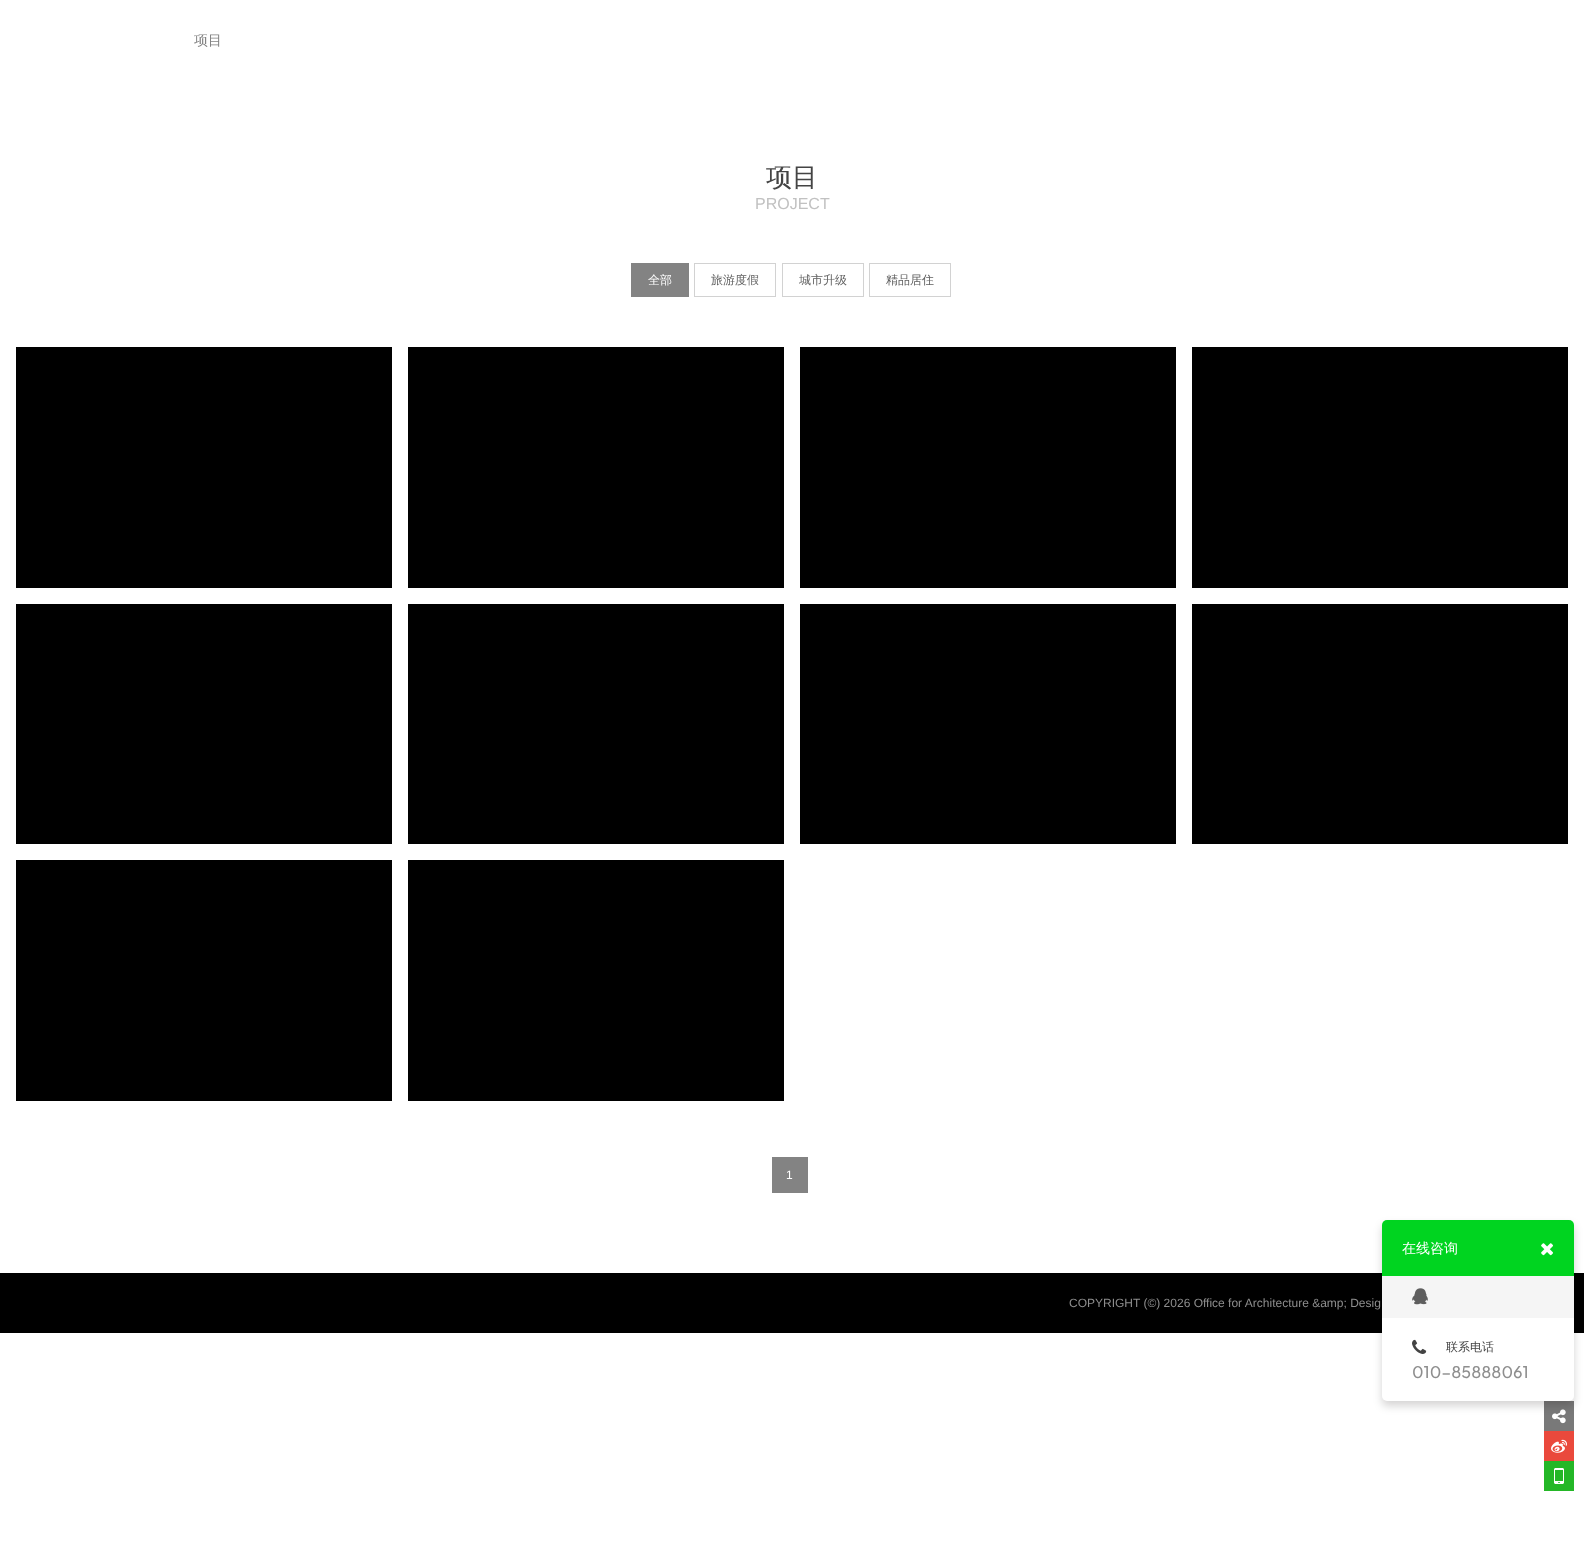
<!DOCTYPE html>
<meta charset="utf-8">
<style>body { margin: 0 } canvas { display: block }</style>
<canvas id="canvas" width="1584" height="1561"></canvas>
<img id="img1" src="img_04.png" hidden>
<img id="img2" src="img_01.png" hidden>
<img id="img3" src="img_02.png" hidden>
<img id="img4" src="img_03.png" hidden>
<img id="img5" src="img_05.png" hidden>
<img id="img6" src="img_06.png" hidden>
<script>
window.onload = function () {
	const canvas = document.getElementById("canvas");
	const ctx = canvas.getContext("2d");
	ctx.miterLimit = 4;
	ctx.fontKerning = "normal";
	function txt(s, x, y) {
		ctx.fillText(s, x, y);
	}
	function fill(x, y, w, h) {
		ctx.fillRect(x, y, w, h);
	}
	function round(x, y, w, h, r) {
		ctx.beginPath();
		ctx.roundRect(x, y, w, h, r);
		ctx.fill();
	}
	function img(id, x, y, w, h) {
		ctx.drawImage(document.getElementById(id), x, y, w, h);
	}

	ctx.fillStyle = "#FFFFFF";
	fill(0, 0, 1584, 1561);
	ctx.fillStyle = "#838383";
	fill(631, 263, 58, 34);
	ctx.strokeStyle = "#D2D2D2";
	ctx.strokeRect(694.5, 263.5, 81, 33);
	ctx.strokeRect(782.5, 263.5, 81, 33);
	ctx.strokeRect(869.5, 263.5, 81, 33);
	ctx.fillStyle = "#000000";
	fill(16, 347, 376, 241);
	fill(408, 347, 376, 241);
	fill(800, 347, 376, 241);
	fill(1192, 347, 376, 241);
	fill(16, 604, 376, 240);
	fill(408, 604, 376, 240);
	fill(800, 604, 376, 240);
	fill(1192, 604, 376, 240);
	fill(16, 860, 376, 241);
	fill(408, 860, 376, 241);
	ctx.fillStyle = "#838383";
	fill(772, 1157, 36, 36);
	ctx.fillStyle = "#000000";
	fill(0, 1273, 1584, 60);
	ctx.fillStyle = "#797979";
	fill(1544, 1401, 30, 30);
	img("img1", 1552, 1409, 14, 15);
	ctx.fillStyle = "rgba(4, 0, 0, 0.17)";
	ctx.filter = "blur(4.5px)";
	ctx.beginPath();
	ctx.roundRect(1382, 1225, 192, 181, 5);
	ctx.fill();
	ctx.filter = "none";
	ctx.fillStyle = "#FFFFFF";
	round(1382, 1220, 192, 181, 5);
	ctx.fillStyle = "#00D420";
	ctx.beginPath();
	ctx.roundRect(1382, 1220, 192, 56, [5, 5, 0, 0]);
	ctx.fill();
	img("img2", 1541, 1243, 12, 13);
	ctx.fillStyle = "#F5F5F5";
	fill(1382, 1276, 192, 42);
	img("img3", 1412, 1288, 16, 17);
	img("img4", 1412, 1339, 15, 15);
	ctx.fillStyle = "#EA493C";
	fill(1544, 1431, 30, 30);
	img("img5", 1551, 1439, 16, 14);
	ctx.fillStyle = "#24B727";
	fill(1544, 1461, 30, 30);
	img("img6", 1554, 1468, 10, 16);
	ctx.font = "500 14px WenQuanYi Zen Hei";
	ctx.fillStyle = "#838383";
	txt("项目", 194, 45);
	ctx.font = "500 26px WenQuanYi Zen Hei";
	ctx.fillStyle = "#444444";
	txt("项目", 766, 186);
	ctx.font = "16px Liberation Sans";
	ctx.fillStyle = "#C1C1C1";
	txt("PROJECT", 755, 209);
	ctx.font = "500 12px WenQuanYi Zen Hei";
	ctx.fillStyle = "#FFFFFF";
	txt("全部", 648, 284);
	ctx.fillStyle = "#616161";
	txt("旅游度假", 711, 284);
	txt("城市升级", 799, 284);
	txt("精品居住", 886, 284);
	ctx.font = "12px Liberation Sans";
	ctx.fillStyle = "#FFFFFF";
	txt("1", 786, 1179);
	ctx.fillStyle = "#8E8E8E";
	txt("COPYRIGHT (©) 2026 Office for Architecture &amp; Desig", 1069, 1307);
	ctx.font = "500 14px WenQuanYi Zen Hei";
	ctx.fillStyle = "#FFFFFF";
	txt("在线咨询", 1402, 1253);
	ctx.font = "500 12px WenQuanYi Zen Hei";
	ctx.fillStyle = "#444444";
	txt("联系电话", 1446, 1351);
	ctx.font = "500 16px Plus Jakarta Sans";
	ctx.fillStyle = "#8E8E8E";
	txt("010-85888061", 1412, 1378);
};
</script>
